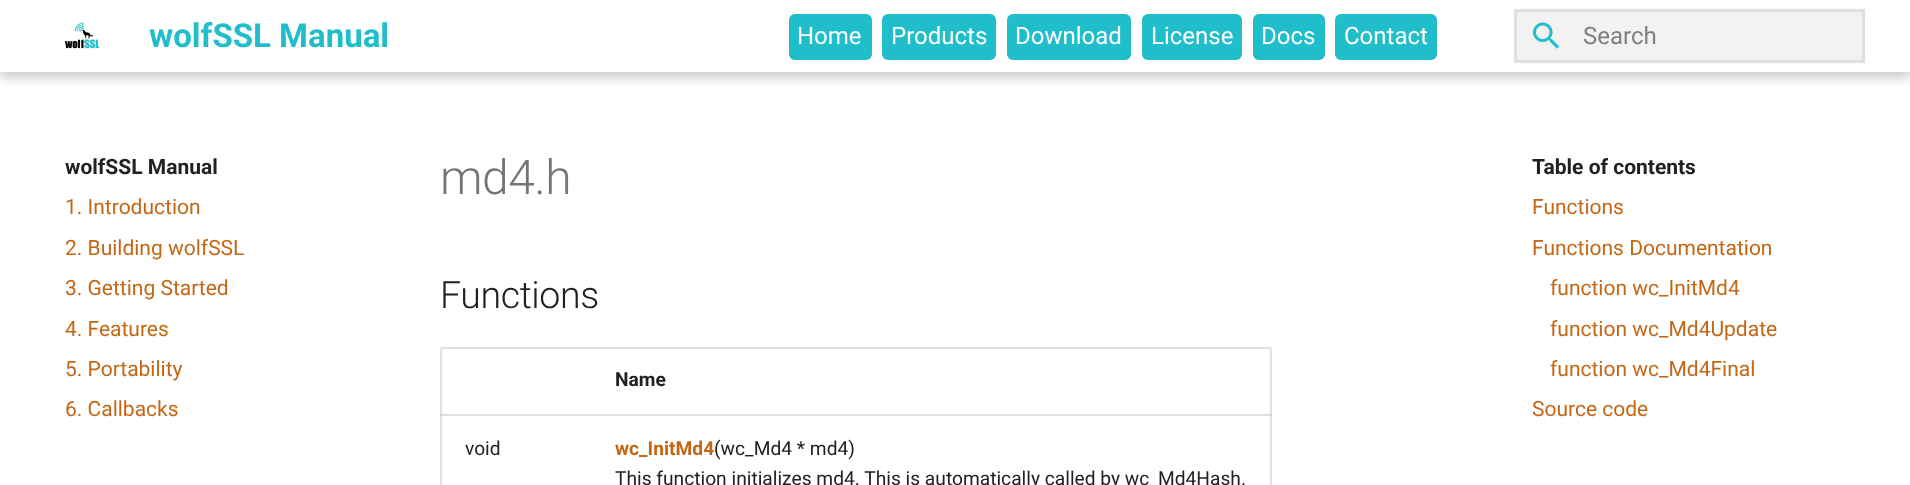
<!DOCTYPE html>
<meta charset="utf-8">
<style>body { margin: 0 } canvas { display: block }</style>
<canvas id="canvas" width="1910" height="485"></canvas>
<img id="img1" src="img_01.png" hidden>
<img id="img2" src="img_02.png" hidden>
<script>
window.onload = function () {
	const canvas = document.getElementById("canvas");
	const ctx = canvas.getContext("2d");
	ctx.miterLimit = 4;
	ctx.fontKerning = "normal";
	function txt(s, x, y) {
		ctx.fillText(s, x, y);
	}
	function fill(x, y, w, h) {
		ctx.fillRect(x, y, w, h);
	}
	function round(x, y, w, h, r) {
		ctx.beginPath();
		ctx.roundRect(x, y, w, h, r);
		ctx.fill();
	}
	function img(id, x, y, w, h) {
		ctx.drawImage(document.getElementById(id), x, y, w, h);
	}

	ctx.fillStyle = "#FFFFFF";
	fill(0, 0, 1910, 485);
	ctx.save();
	ctx.beginPath();
	ctx.rect(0, 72, 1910, 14);
	ctx.clip();
	ctx.fillStyle = "rgba(0, 0, 0, 0.2)";
	ctx.filter = "blur(6px)";
	ctx.beginPath();
	ctx.rect(0, 6, 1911, 72);
	ctx.fill();
	ctx.filter = "none";
	ctx.restore();
	img("img1", 64, 22, 36, 27);
	ctx.fillStyle = "#1FBECA";
	round(789, 14, 83, 46, 6);
	round(882, 14, 114, 46, 6);
	round(1007, 14, 124, 46, 6);
	round(1142, 14, 100, 46, 6);
	round(1253, 14, 72, 46, 6);
	round(1335, 14, 102, 46, 6);
	ctx.fillStyle = "#F2F2F2";
	ctx.beginPath();
	ctx.rect(1515.5, 10.5, 348, 51);
	ctx.fill();
	ctx.strokeStyle = "#DFDFDF";
	ctx.lineWidth = 3;
	ctx.stroke();
	img("img2", 1533, 22, 27, 27);
	ctx.beginPath();
	ctx.roundRect(441, 348, 830, 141, 2);
	ctx.strokeStyle = "#E0E0E0";
	ctx.lineWidth = 2;
	ctx.stroke();
	ctx.fillStyle = "rgba(0, 0, 0, 0.12)";
	fill(441, 414, 150, 2);
	fill(591, 414, 680, 2);
	ctx.font = "bold 33px Roboto";
	ctx.fillStyle = "#1FBECA";
	txt("wolfSSL Manual", 149, 47);
	ctx.font = "24px Roboto";
	ctx.fillStyle = "#FFFFFF";
	txt("Home", 797, 44);
	txt("Products", 891, 44);
	txt("Download", 1015, 44);
	txt("License", 1151, 44);
	txt("Docs", 1261, 44);
	txt("Contact", 1344, 44);
	ctx.fillStyle = "#808080";
	txt("Search", 1583, 44);
	ctx.font = "bold 21px Roboto";
	ctx.fillStyle = "#212121";
	txt("wolfSSL Manual", 65, 174);
	ctx.font = "21px Roboto";
	ctx.fillStyle = "#C46715";
	txt("1. Introduction", 65, 214);
	txt("2. Building wolfSSL", 65, 255);
	txt("3. Getting Started", 65, 295);
	txt("4. Features", 65, 336);
	txt("5. Portability", 65, 376);
	txt("6. Callbacks", 65, 416);
	ctx.letterSpacing = "-0.5px";
	ctx.font = "300 48px Roboto";
	ctx.fillStyle = "#757575";
	txt("md4.h", 440, 194);
	ctx.letterSpacing = "-0.4px";
	ctx.font = "300 37.5px Roboto";
	ctx.fillStyle = "#212121";
	txt("Functions", 440, 308);
	ctx.letterSpacing = "0px";
	ctx.font = "bold 19.2px Roboto";
	txt("Name", 615, 386);
	ctx.font = "19.2px Roboto";
	txt("void", 465, 455);
	ctx.font = "bold 19.2px Roboto";
	ctx.fillStyle = "#C46715";
	txt("wc_InitMd4", 615, 455);
	ctx.font = "19.2px Roboto";
	ctx.fillStyle = "#212121";
	txt("(wc_Md4 * md4)", 714, 455);
	txt("This function initializes md4. This is automatically called by wc_Md4Hash.", 615, 485);
	ctx.font = "bold 21px Roboto";
	txt("Table of contents", 1532, 174);
	ctx.font = "21px Roboto";
	ctx.fillStyle = "#C46715";
	txt("Functions", 1532, 214);
	txt("Functions Documentation", 1532, 255);
	txt("function wc_InitMd4", 1550, 295);
	txt("function wc_Md4Update", 1550, 336);
	txt("function wc_Md4Final", 1550, 376);
	txt("Source code", 1532, 416);
};
</script>
